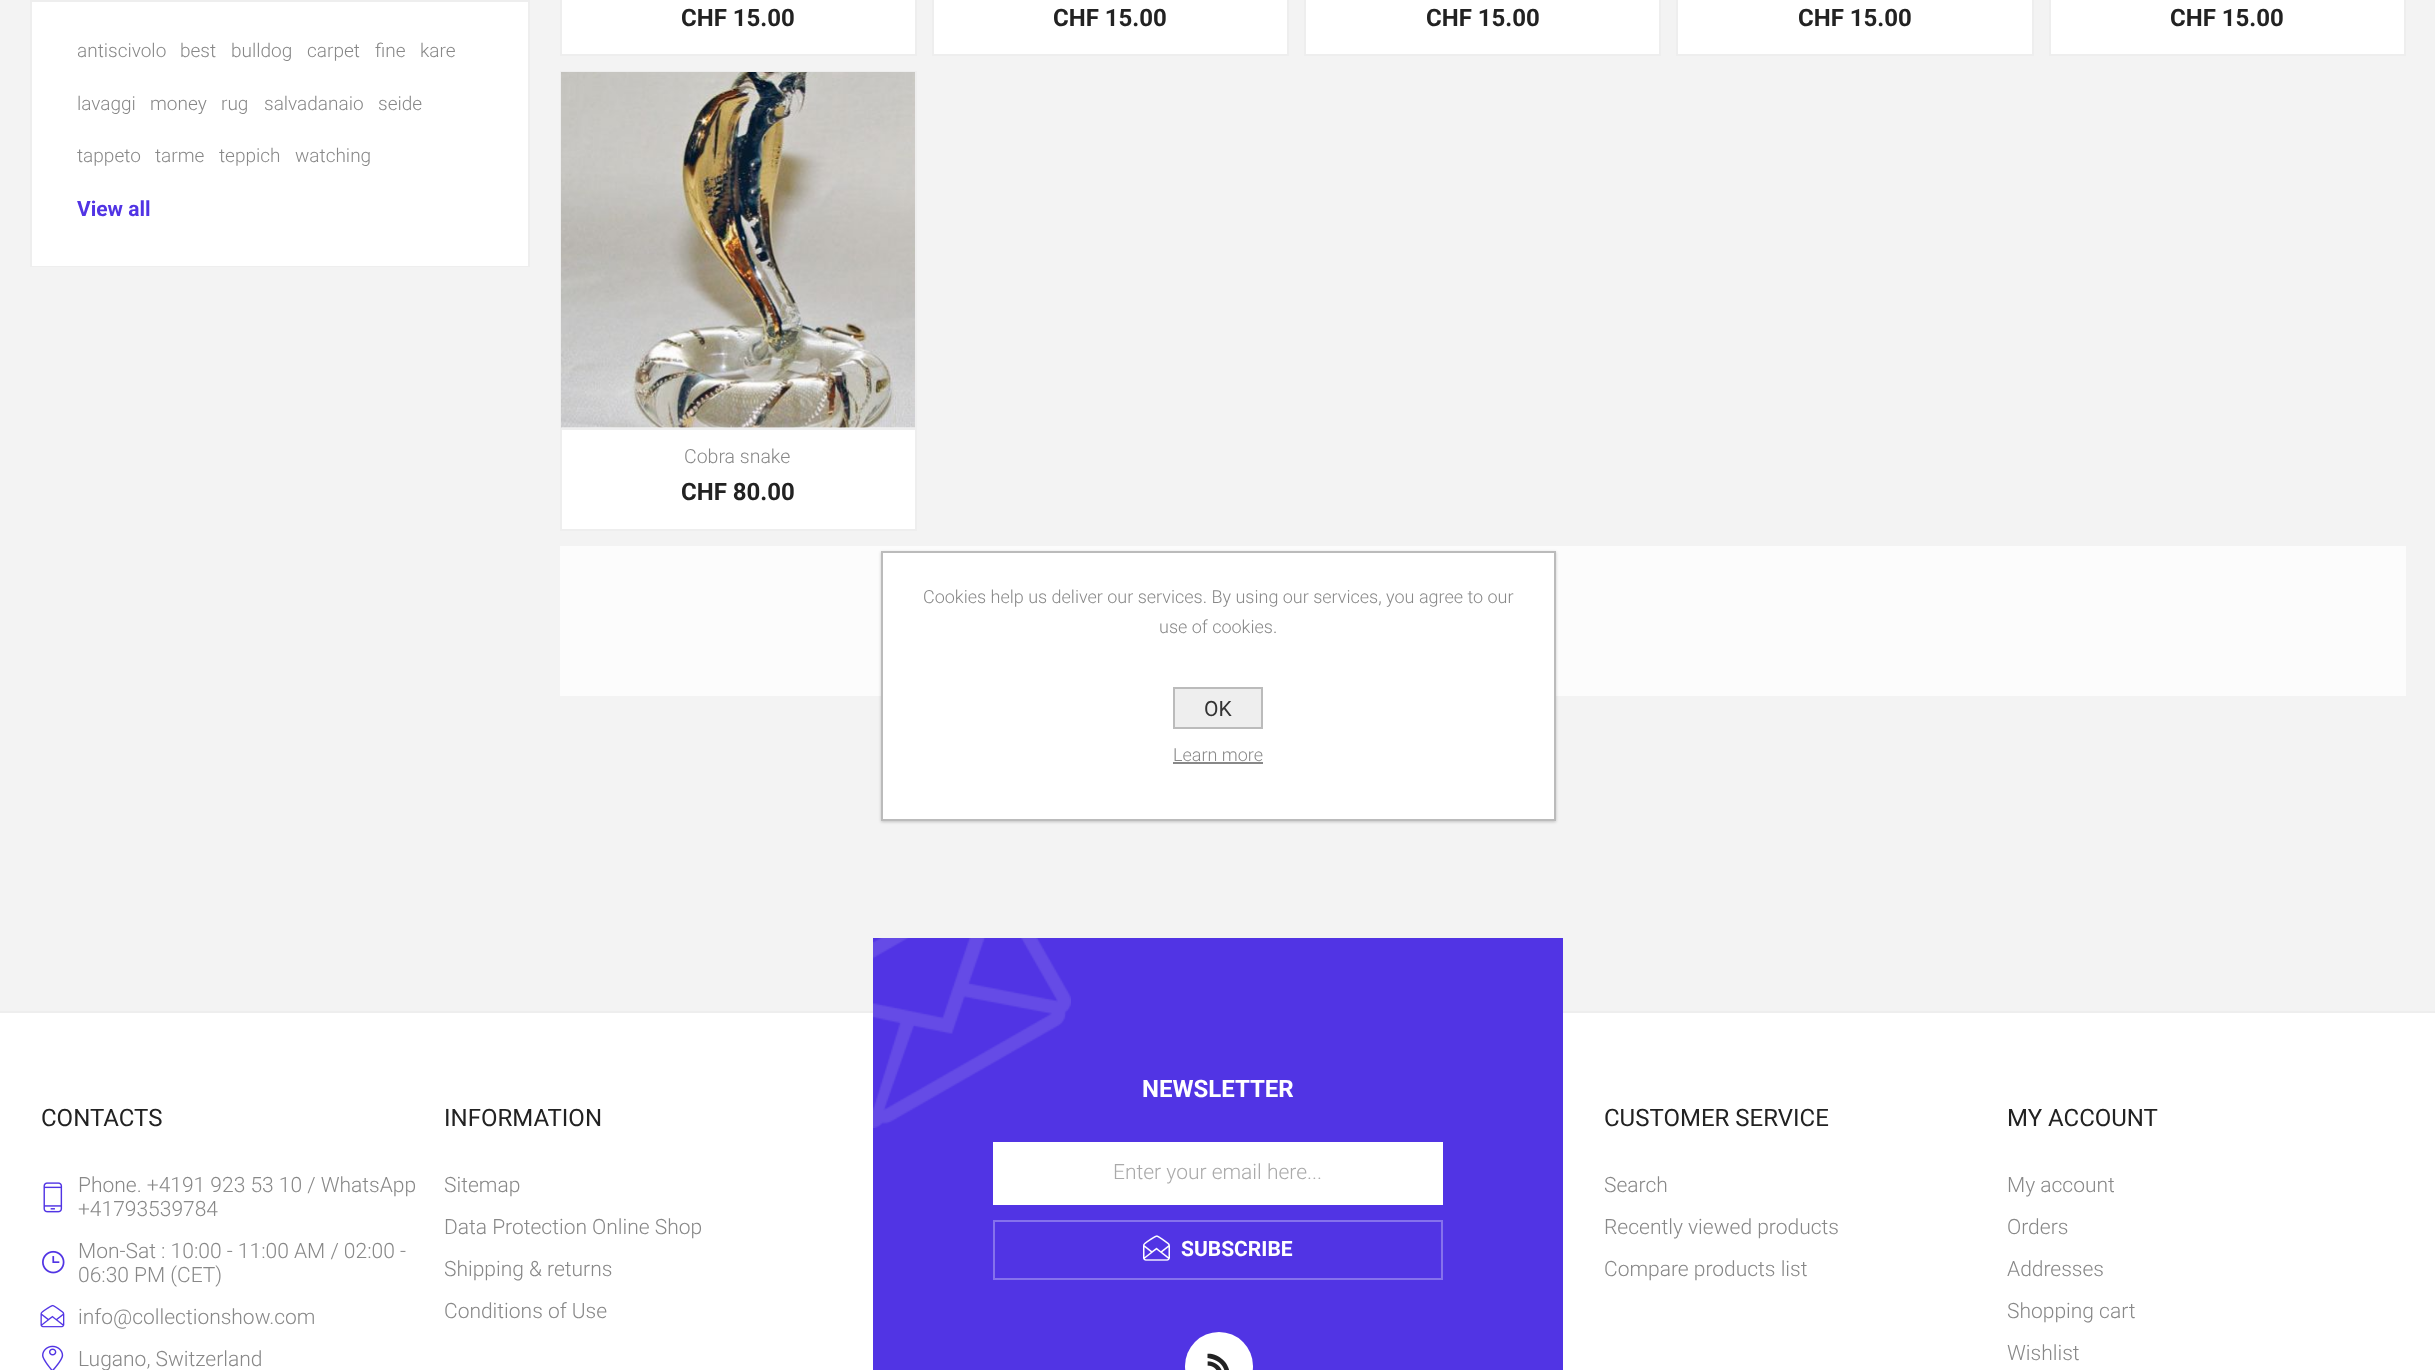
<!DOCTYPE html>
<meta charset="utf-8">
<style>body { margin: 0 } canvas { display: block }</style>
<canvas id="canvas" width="2435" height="1370"></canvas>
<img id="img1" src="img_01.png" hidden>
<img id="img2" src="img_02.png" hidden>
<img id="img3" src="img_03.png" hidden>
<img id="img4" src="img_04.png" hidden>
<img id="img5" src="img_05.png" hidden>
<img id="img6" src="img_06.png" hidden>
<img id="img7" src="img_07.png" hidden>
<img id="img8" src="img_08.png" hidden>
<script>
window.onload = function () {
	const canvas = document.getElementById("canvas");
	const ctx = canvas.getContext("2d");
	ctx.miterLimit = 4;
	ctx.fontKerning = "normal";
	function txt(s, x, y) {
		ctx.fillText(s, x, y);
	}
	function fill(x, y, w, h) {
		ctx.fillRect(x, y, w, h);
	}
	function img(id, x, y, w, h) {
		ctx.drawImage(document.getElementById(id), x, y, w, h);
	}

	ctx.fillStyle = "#F3F3F3";
	fill(0, 0, 2435, 1370);
	ctx.fillStyle = "#FFFFFF";
	fill(32, 2, 496, 264);
	ctx.fillStyle = "#EEEEEE";
	fill(528, 0, 2, 267);
	fill(30, 0, 2, 267);
	fill(32, 0, 496, 2);
	fill(32, 266, 496, 1);
	ctx.fillStyle = "#FFFFFF";
	ctx.beginPath();
	ctx.rect(561, -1, 355, 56);
	ctx.fill();
	ctx.strokeStyle = "#EEEEEE";
	ctx.lineWidth = 2;
	ctx.stroke();
	ctx.beginPath();
	ctx.rect(933, -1, 355, 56);
	ctx.fill();
	ctx.stroke();
	ctx.beginPath();
	ctx.rect(1305, -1, 355, 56);
	ctx.fill();
	ctx.stroke();
	ctx.beginPath();
	ctx.rect(1677, -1, 356, 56);
	ctx.fill();
	ctx.stroke();
	ctx.beginPath();
	ctx.rect(2050, -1, 355, 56);
	ctx.fill();
	ctx.stroke();
	fill(562, 427, 353, 102);
	ctx.strokeRect(561, 72, 355, 458);
	ctx.fillStyle = "#EEEEEE";
	fill(561, 428, 354, 2);
	img("img1", 561, 72, 354, 356);
	ctx.fillStyle = "#FCFCFC";
	fill(560, 546, 1846, 150);
	ctx.fillStyle = "#FFFFFF";
	fill(0, 1013, 2435, 357);
	ctx.fillStyle = "#EEEEEE";
	fill(0, 1011, 2435, 2);
	img("img2", 43, 1182, 20, 31);
	img("img3", 42, 1250, 23, 24);
	img("img4", 40, 1304, 25, 24);
	img("img5", 42, 1345, 22, 25);
	ctx.fillStyle = "#5134E4";
	fill(873, 938, 690, 432);
	img("img6", 873, 938, 198, 190);
	ctx.fillStyle = "#FFFFFF";
	fill(993, 1142, 450, 63);
	img("img7", 1143, 1235, 27, 26);
	ctx.strokeStyle = "#8571EC";
	ctx.strokeRect(994, 1221, 448, 58);
	ctx.beginPath();
	ctx.arc(1219, 1366, 34, 0, Math.PI * 2);
	ctx.fill();
	img("img8", 1207, 1353, 22, 17);
	ctx.fillStyle = "rgba(0, 0, 0, 0.2)";
	ctx.filter = "blur(1.5px)";
	ctx.beginPath();
	ctx.rect(881, 552, 675, 270);
	ctx.fill();
	ctx.filter = "none";
	ctx.fillStyle = "#FFFFFF";
	ctx.beginPath();
	ctx.rect(882, 552, 673, 268);
	ctx.fill();
	ctx.strokeStyle = "#BBBBBB";
	ctx.stroke();
	ctx.fillStyle = "#EEEEEE";
	ctx.beginPath();
	ctx.rect(1174, 688, 88, 40);
	ctx.fill();
	ctx.stroke();
	ctx.fillStyle = "#888888";
	fill(1173, 762, 90, 2);
	ctx.font = "300 19px Roboto";
	txt("antiscivolo", 77, 57);
	txt("best", 180, 57);
	txt("bulldog", 231, 57);
	txt("carpet", 307, 57);
	txt("fine", 375, 57);
	txt("kare", 420, 57);
	txt("lavaggi", 77, 110);
	txt("money", 150, 110);
	txt("rug", 221, 110);
	txt("salvadanaio", 264, 110);
	txt("seide", 378, 110);
	txt("tappeto", 77, 162);
	txt("tarme", 155, 162);
	txt("teppich", 219, 162);
	txt("watching", 295, 162);
	ctx.font = "bold 21px Roboto";
	ctx.fillStyle = "#5134E4";
	txt("View all", 77, 216);
	ctx.font = "bold 24px Roboto";
	ctx.fillStyle = "#222222";
	txt("CHF 15.00", 681, 26);
	txt("CHF 15.00", 1053, 26);
	txt("CHF 15.00", 1426, 26);
	txt("CHF 15.00", 1798, 26);
	txt("CHF 15.00", 2170, 26);
	ctx.font = "300 19.5px Roboto";
	ctx.fillStyle = "#888888";
	txt("Cobra snake", 684, 463);
	ctx.font = "bold 24px Roboto";
	ctx.fillStyle = "#222222";
	txt("CHF 80.00", 681, 500);
	ctx.font = "24px Roboto";
	txt("CONTACTS", 41, 1126);
	ctx.font = "300 21px Roboto";
	ctx.fillStyle = "#888888";
	txt("Phone. +4191 923 53 10 / WhatsApp", 78, 1192);
	txt("+41793539784", 78, 1216);
	txt("Mon-Sat : 10:00 - 11:00 AM / 02:00 -", 78, 1258);
	txt("06:30 PM (CET)", 78, 1282);
	txt("info@collectionshow.com", 78, 1324);
	txt("Lugano, Switzerland", 78, 1366);
	ctx.font = "24px Roboto";
	ctx.fillStyle = "#222222";
	txt("INFORMATION", 444, 1126);
	ctx.font = "300 21px Roboto";
	ctx.fillStyle = "#888888";
	txt("Sitemap", 444, 1192);
	txt("Data Protection Online Shop", 444, 1234);
	txt("Shipping & returns", 444, 1276);
	txt("Conditions of Use", 444, 1318);
	ctx.font = "bold 24px Roboto";
	ctx.fillStyle = "#FFFFFF";
	txt("NEWSLETTER", 1142, 1097);
	ctx.font = "300 21px Roboto";
	ctx.fillStyle = "#AAAAAA";
	txt("Enter your email here...", 1113, 1179);
	ctx.font = "bold 21px Roboto";
	ctx.fillStyle = "#FFFFFF";
	txt("SUBSCRIBE", 1181, 1256);
	ctx.font = "24px Roboto";
	ctx.fillStyle = "#222222";
	txt("CUSTOMER SERVICE", 1604, 1126);
	ctx.font = "300 21px Roboto";
	ctx.fillStyle = "#888888";
	txt("Search", 1604, 1192);
	txt("Recently viewed products", 1604, 1234);
	txt("Compare products list", 1604, 1276);
	ctx.font = "24px Roboto";
	ctx.fillStyle = "#222222";
	txt("MY ACCOUNT", 2007, 1126);
	ctx.font = "300 21px Roboto";
	ctx.fillStyle = "#888888";
	txt("My account", 2007, 1192);
	txt("Orders", 2007, 1234);
	txt("Addresses", 2007, 1276);
	txt("Shopping cart", 2007, 1318);
	txt("Wishlist", 2007, 1360);
	ctx.font = "300 18px Roboto";
	txt("Cookies help us deliver our services. By using our services, you agree to our", 923, 603);
	txt("use of cookies.", 1159, 633);
	ctx.font = "21px Roboto";
	ctx.fillStyle = "#333333";
	txt("OK", 1204, 716);
	ctx.font = "300 18px Roboto";
	ctx.fillStyle = "#888888";
	txt("Learn more", 1173, 761);
};
</script>
